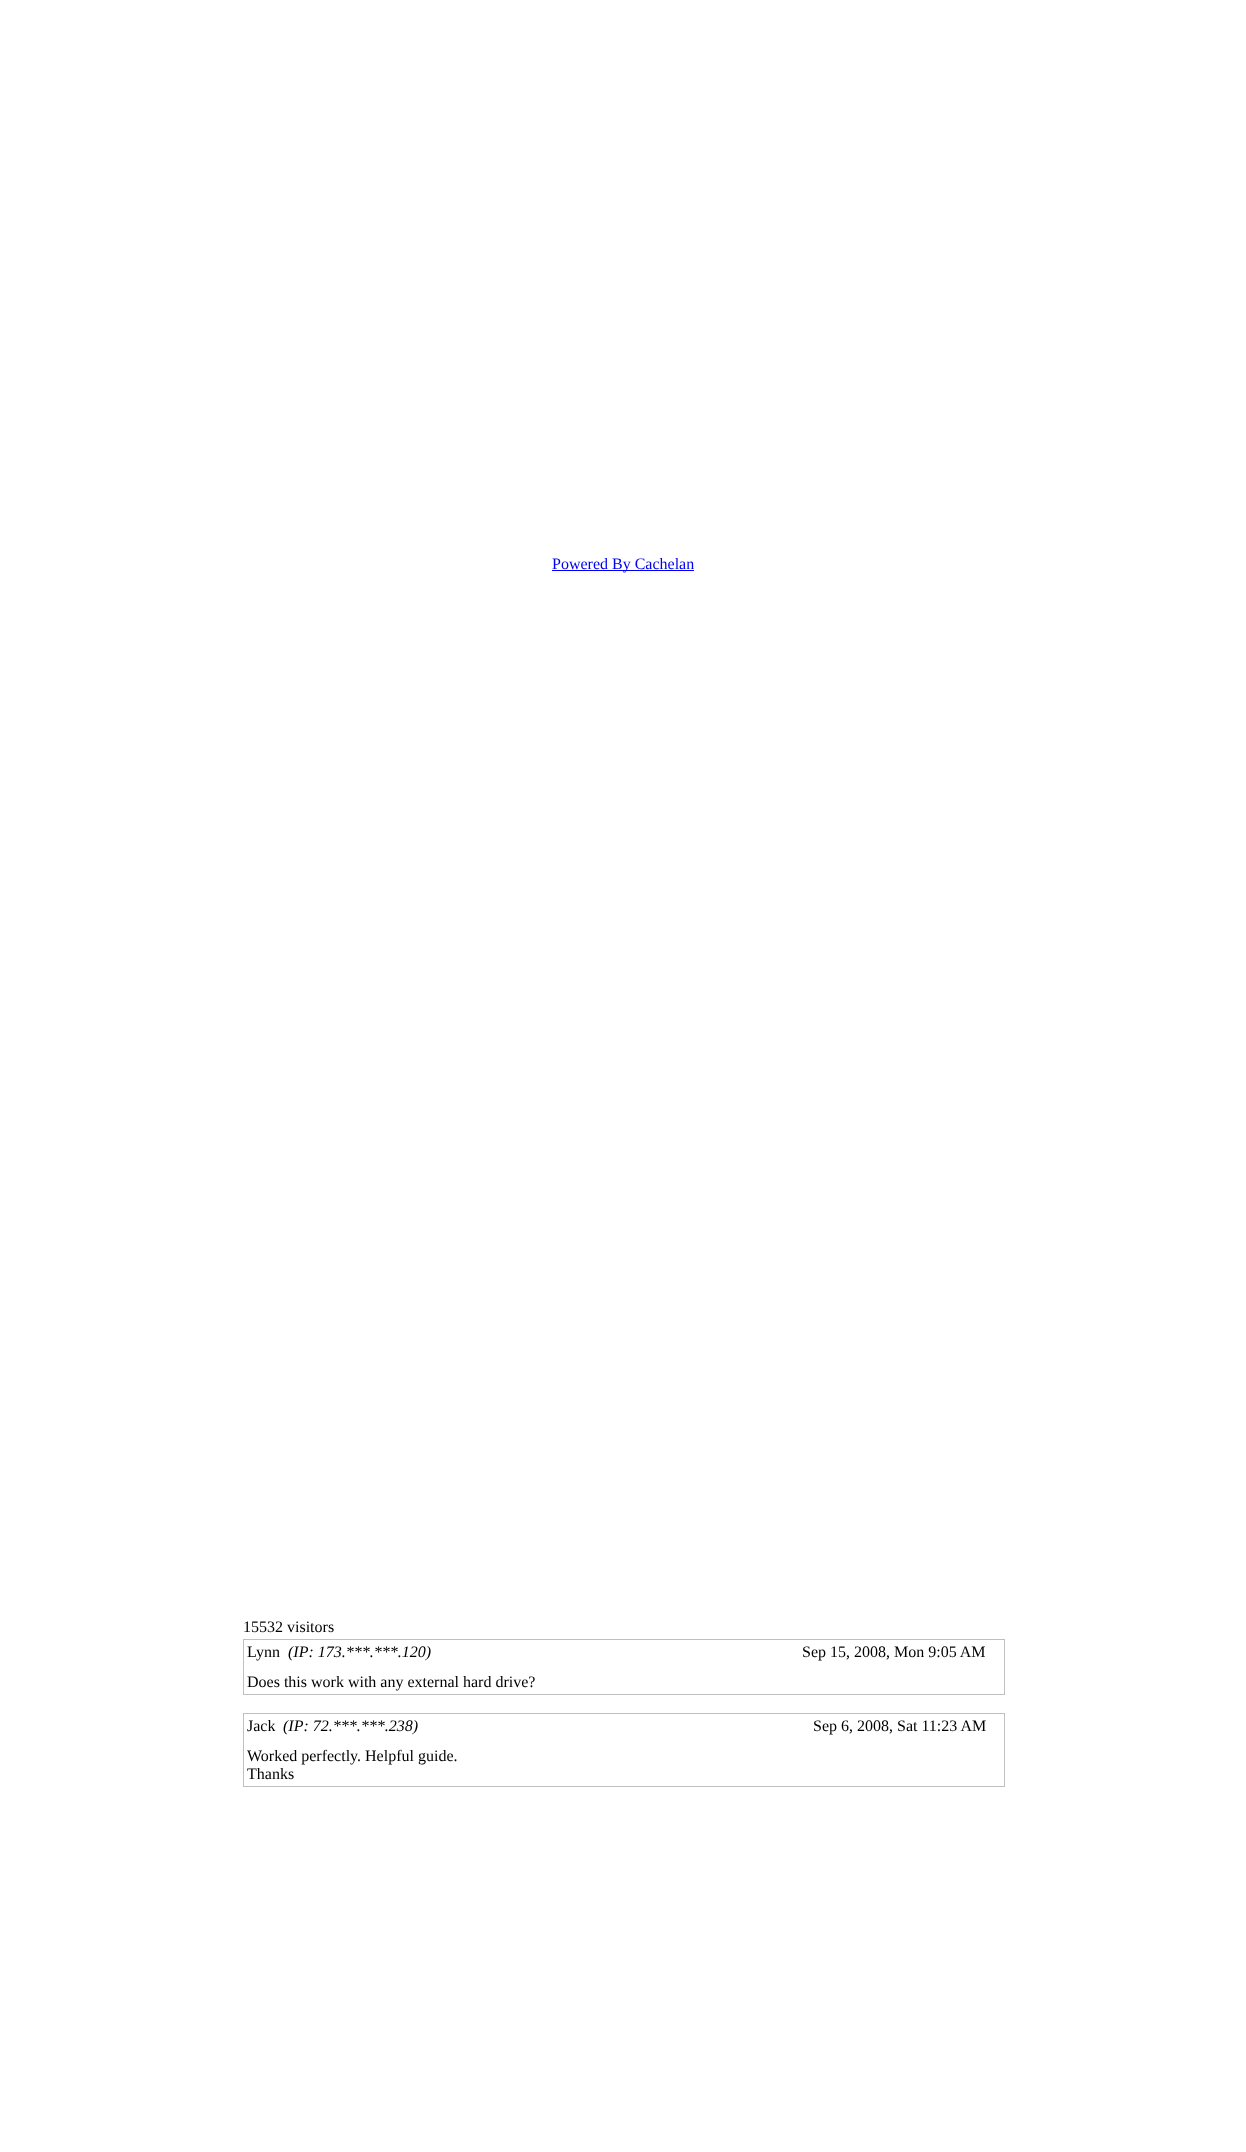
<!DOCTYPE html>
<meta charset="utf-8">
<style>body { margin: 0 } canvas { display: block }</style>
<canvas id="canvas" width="1246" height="2152"></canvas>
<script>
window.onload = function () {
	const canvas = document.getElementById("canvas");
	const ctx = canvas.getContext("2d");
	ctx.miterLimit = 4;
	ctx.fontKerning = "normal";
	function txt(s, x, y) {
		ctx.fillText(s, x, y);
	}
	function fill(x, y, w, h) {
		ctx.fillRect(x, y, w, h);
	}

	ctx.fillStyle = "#FFFFFF";
	fill(0, 0, 1246, 2152);
	ctx.fillStyle = "#0000EE";
	fill(552, 570, 142, 1);
	ctx.strokeStyle = "#C0C0C0";
	ctx.strokeRect(243.5, 1639.5, 761, 55);
	ctx.strokeRect(243.5, 1713.5, 761, 73);
	ctx.font = "16px Liberation Serif";
	txt("Powered By Cachelan", 552, 569);
	ctx.fillStyle = "#000000";
	txt("15532 visitors", 243, 1632);
	txt("Lynn", 247, 1657);
	ctx.font = "italic 16px Liberation Serif";
	txt("(IP: 173.***.***.120)", 288, 1657);
	ctx.font = "16px Liberation Serif";
	txt("Sep 15, 2008, Mon 9:05 AM", 802, 1657);
	txt("Does this work with any external hard drive?", 247, 1687);
	txt("Jack", 247, 1731);
	ctx.font = "italic 16px Liberation Serif";
	txt("(IP: 72.***.***.238)", 283, 1731);
	ctx.font = "16px Liberation Serif";
	txt("Sep 6, 2008, Sat 11:23 AM", 813, 1731);
	txt("Worked perfectly. Helpful guide.", 247, 1761);
	txt("Thanks", 247, 1779);
};
</script>
